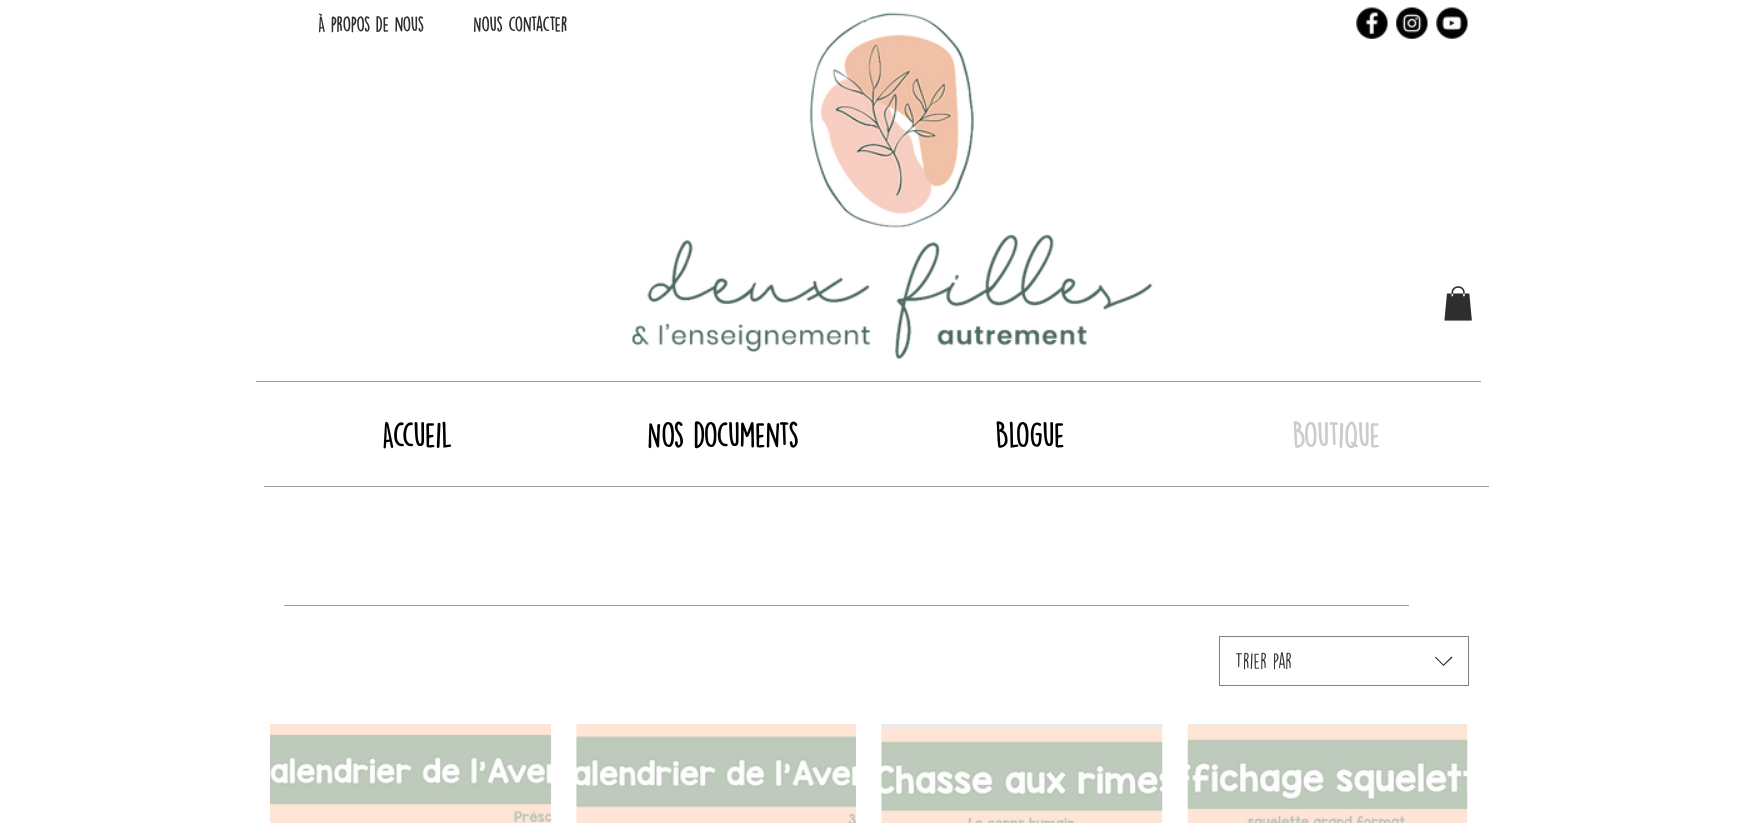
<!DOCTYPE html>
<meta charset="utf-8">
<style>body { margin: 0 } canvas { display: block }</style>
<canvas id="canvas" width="1737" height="823"></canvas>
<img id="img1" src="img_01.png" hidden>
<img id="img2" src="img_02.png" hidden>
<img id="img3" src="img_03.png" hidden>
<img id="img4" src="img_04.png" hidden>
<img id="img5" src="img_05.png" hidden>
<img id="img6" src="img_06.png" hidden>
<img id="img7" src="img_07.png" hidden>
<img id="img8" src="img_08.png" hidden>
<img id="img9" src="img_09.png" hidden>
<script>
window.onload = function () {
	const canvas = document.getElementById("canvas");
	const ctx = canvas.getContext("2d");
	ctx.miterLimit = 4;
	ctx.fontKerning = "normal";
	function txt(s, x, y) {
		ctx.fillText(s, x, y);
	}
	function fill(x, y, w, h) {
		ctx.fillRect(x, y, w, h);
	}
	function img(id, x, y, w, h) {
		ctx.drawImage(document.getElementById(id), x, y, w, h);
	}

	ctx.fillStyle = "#FFFFFF";
	fill(0, 0, 1737, 823);
	img("img1", 632, 12, 521, 347);
	img("img2", 1356, 7, 32, 32);
	img("img3", 1396, 7, 32, 32);
	img("img4", 1436, 7, 32, 32);
	img("img5", 1444, 286, 28, 35);
	ctx.fillStyle = "#A0A09F";
	fill(256, 381, 1225, 1);
	fill(264, 486, 1225, 1);
	fill(284, 605, 1125, 1);
	ctx.strokeStyle = "#828282";
	ctx.strokeRect(1219.5, 636.5, 249, 49);
	ctx.fillStyle = "#2F2E2E";
	ctx.beginPath();
	ctx.moveTo(1451.5, 656.5);
	ctx.lineTo(1452.5, 657.5);
	ctx.lineTo(1443.5, 666);
	ctx.lineTo(1435, 657.5);
	ctx.lineTo(1435.5, 656.5);
	ctx.lineTo(1443.5, 664.5);
	ctx.closePath();
	ctx.fill("evenodd");
	img("img6", 270, 724, 282, 99);
	img("img7", 576, 724, 281, 99);
	img("img8", 881, 724, 282, 99);
	img("img9", 1187, 724, 281, 99);
	ctx.font = "bold 18.75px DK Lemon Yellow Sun";
	txt("À propos de nous", 318, 32);
	txt("Nous contacter", 473, 32);
	ctx.font = "bold 31.25px DK Lemon Yellow Sun";
	ctx.fillStyle = "#000000";
	txt("Accueil", 382, 448);
	txt("Nos documents", 647, 448);
	txt("Blogue", 995, 448);
	ctx.fillStyle = "#CCCCCC";
	txt("Boutique", 1292, 448);
	ctx.font = "20px DK Lemon Yellow Sun";
	ctx.fillStyle = "#2F2E2E";
	txt("Trier par", 1235, 669);
};
</script>
